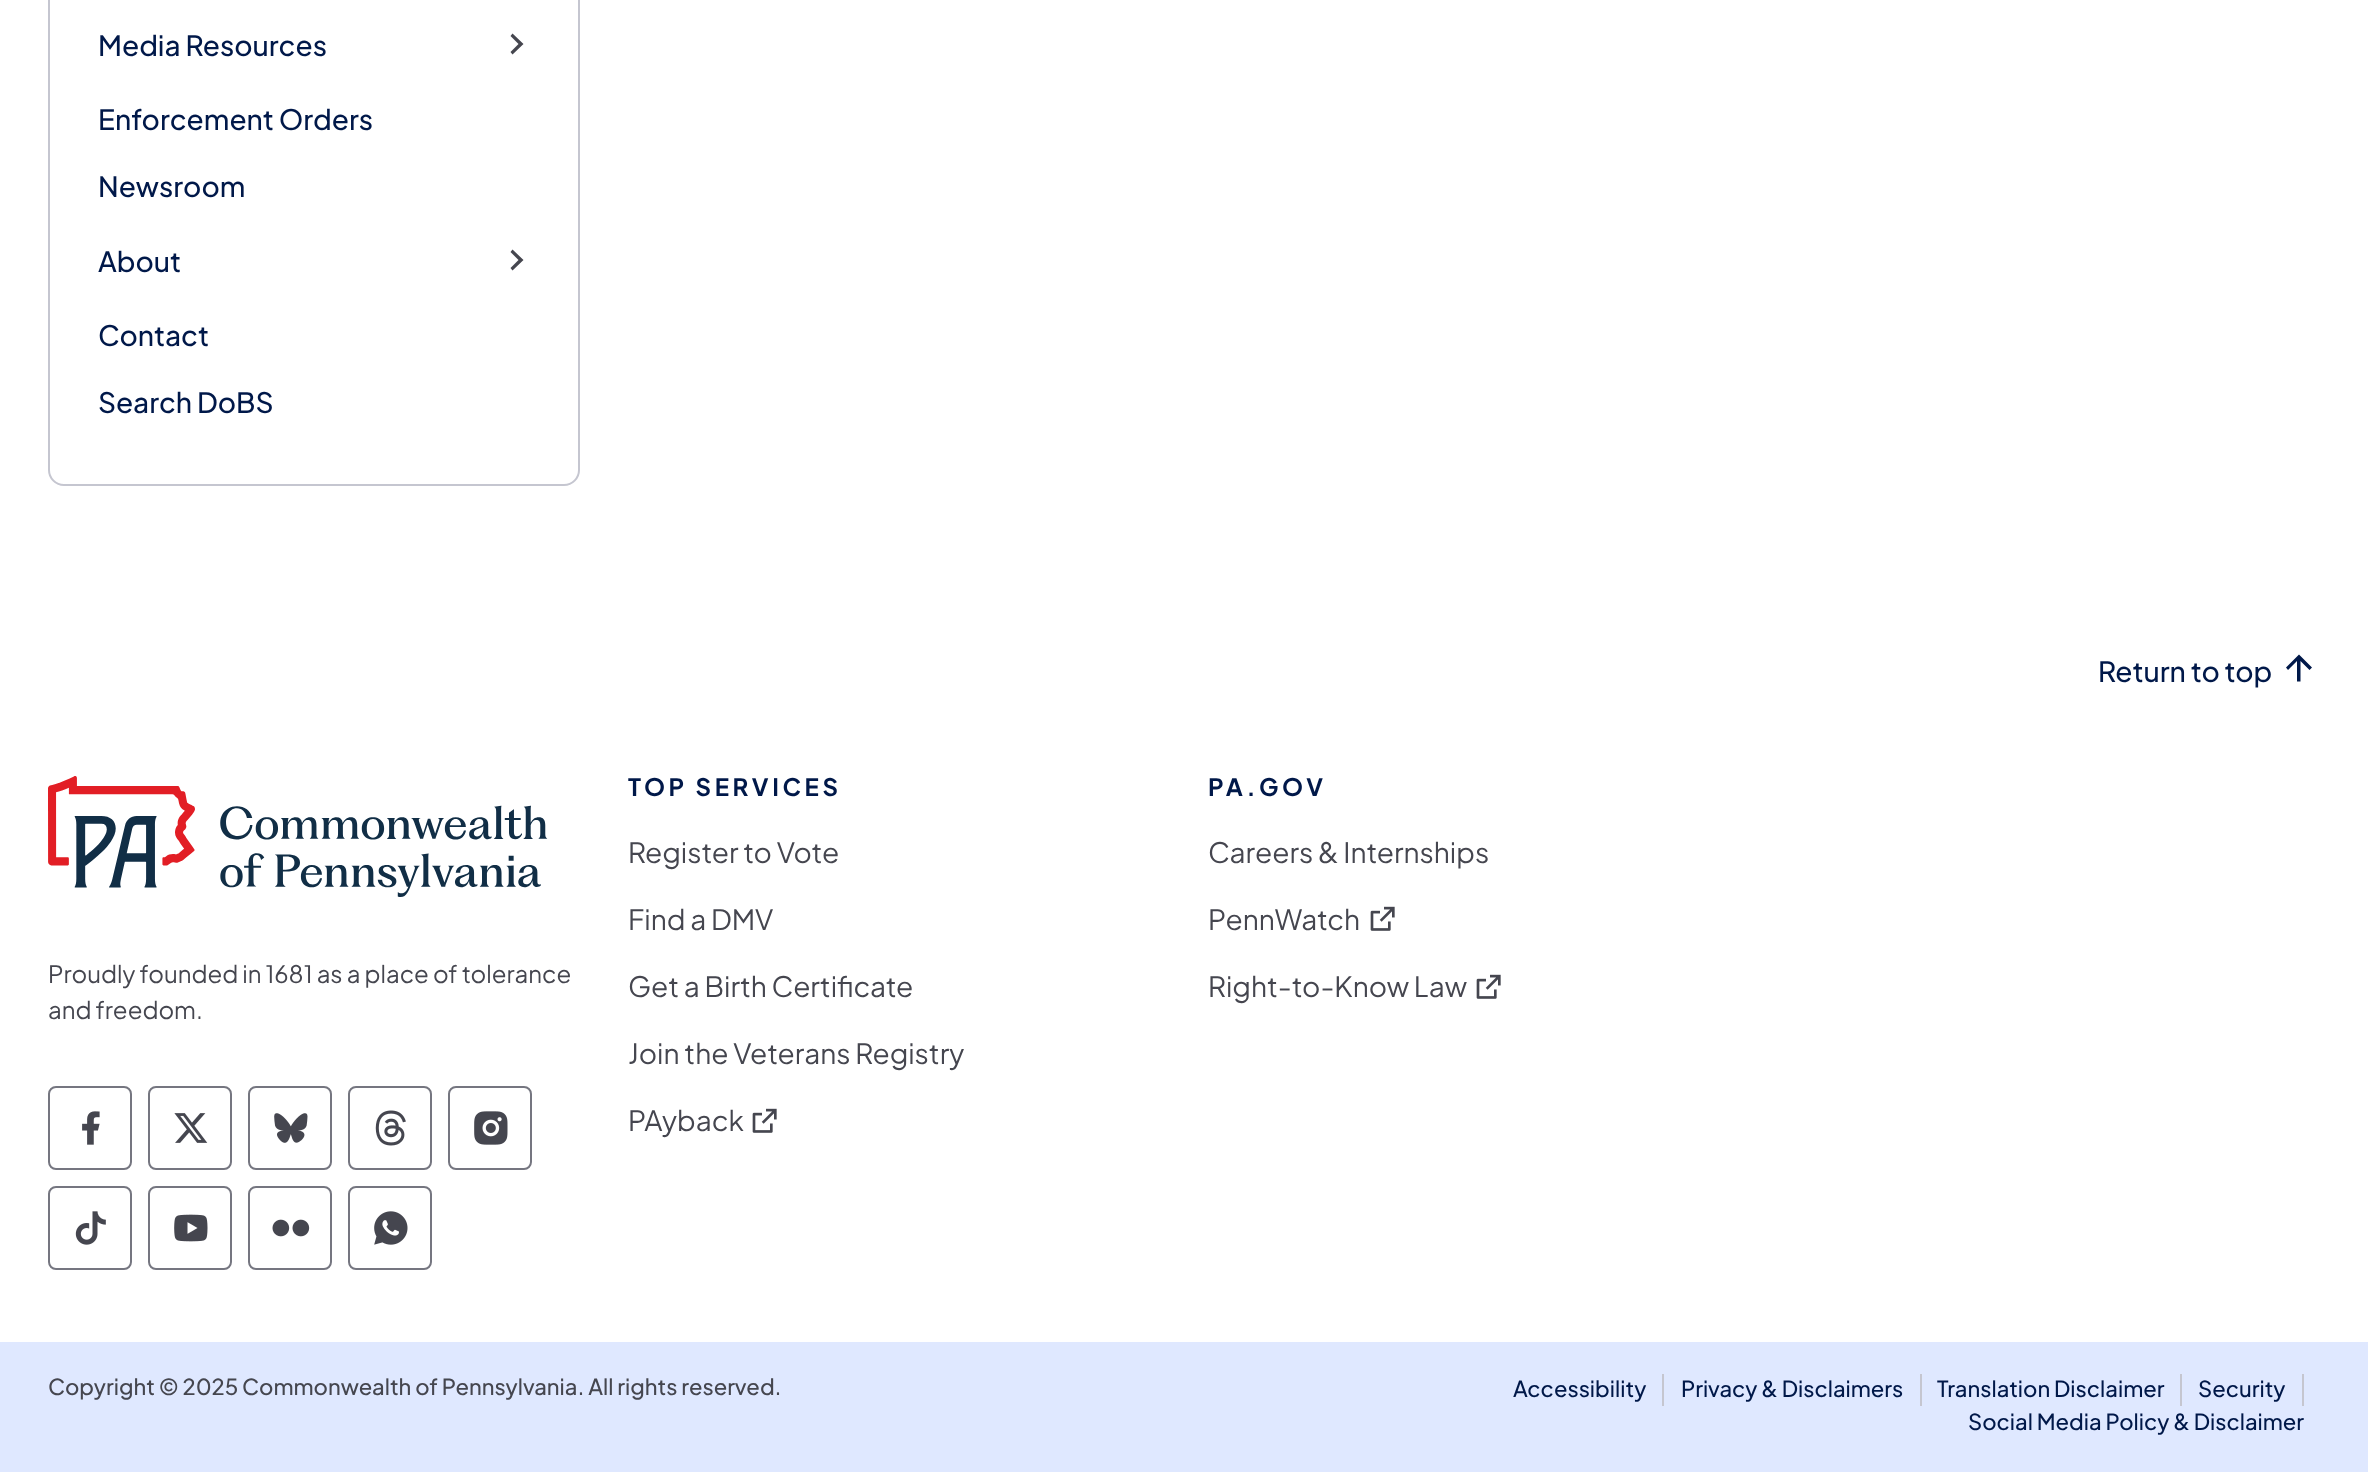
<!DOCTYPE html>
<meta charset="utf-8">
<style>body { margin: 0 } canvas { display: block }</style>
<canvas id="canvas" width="2368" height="1472"></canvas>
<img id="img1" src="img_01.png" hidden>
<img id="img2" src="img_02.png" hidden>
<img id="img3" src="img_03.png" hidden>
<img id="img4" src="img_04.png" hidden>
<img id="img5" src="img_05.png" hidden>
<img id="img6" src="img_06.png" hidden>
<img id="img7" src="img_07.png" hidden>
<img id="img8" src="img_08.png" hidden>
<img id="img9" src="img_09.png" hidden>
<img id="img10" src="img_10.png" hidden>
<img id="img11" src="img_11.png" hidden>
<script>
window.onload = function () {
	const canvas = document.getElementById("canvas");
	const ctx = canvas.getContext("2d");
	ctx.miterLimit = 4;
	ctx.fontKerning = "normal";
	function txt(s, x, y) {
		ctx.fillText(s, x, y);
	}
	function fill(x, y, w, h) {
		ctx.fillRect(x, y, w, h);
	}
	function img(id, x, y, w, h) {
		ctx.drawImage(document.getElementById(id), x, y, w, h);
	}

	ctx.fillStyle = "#FFFFFF";
	fill(0, 0, 2368, 1472);
	ctx.beginPath();
	ctx.roundRect(49, -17, 530, 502, 15);
	ctx.strokeStyle = "#C5C6D0";
	ctx.lineWidth = 2;
	ctx.stroke();
	ctx.fillStyle = "#45464F";
	ctx.beginPath();
	ctx.moveTo(518.5, 44);
	ctx.lineTo(510.5, 36);
	ctx.lineTo(512.5, 33.5);
	ctx.lineTo(523.5, 44);
	ctx.lineTo(512.5, 54.5);
	ctx.lineTo(510.5, 52);
	ctx.closePath();
	ctx.fill();
	ctx.beginPath();
	ctx.moveTo(518.5, 260);
	ctx.lineTo(510.5, 252);
	ctx.lineTo(512.5, 249.5);
	ctx.lineTo(523.5, 260);
	ctx.lineTo(512.5, 270.5);
	ctx.lineTo(510.5, 268);
	ctx.closePath();
	ctx.fill();
	ctx.fillStyle = "#001849";
	ctx.beginPath();
	ctx.moveTo(2300.5, 661);
	ctx.lineTo(2300.5, 681.5);
	ctx.lineTo(2297, 681.5);
	ctx.lineTo(2297, 661);
	ctx.lineTo(2288, 670);
	ctx.lineTo(2286, 667.5);
	ctx.lineTo(2299, 654.5);
	ctx.lineTo(2312, 667.5);
	ctx.lineTo(2309.5, 670);
	ctx.closePath();
	ctx.fill();
	img("img1", 48, 776, 500, 121);
	ctx.beginPath();
	ctx.roundRect(49, 1087, 82, 82, 7);
	ctx.strokeStyle = "#757680";
	ctx.stroke();
	img("img2", 82, 1111, 18, 34);
	ctx.beginPath();
	ctx.roundRect(149, 1087, 82, 82, 7);
	ctx.stroke();
	img("img3", 174, 1113, 34, 30);
	ctx.beginPath();
	ctx.roundRect(249, 1087, 82, 82, 7);
	ctx.stroke();
	img("img4", 274, 1113, 34, 30);
	ctx.beginPath();
	ctx.roundRect(349, 1087, 82, 82, 7);
	ctx.stroke();
	img("img5", 375, 1110, 31, 36);
	ctx.beginPath();
	ctx.roundRect(449, 1087, 82, 82, 7);
	ctx.stroke();
	img("img6", 474, 1111, 34, 34);
	ctx.beginPath();
	ctx.roundRect(49, 1187, 82, 82, 7);
	ctx.stroke();
	img("img7", 75, 1211, 31, 34);
	ctx.beginPath();
	ctx.roundRect(149, 1187, 82, 82, 7);
	ctx.stroke();
	img("img8", 174, 1214, 34, 28);
	ctx.beginPath();
	ctx.roundRect(249, 1187, 82, 82, 7);
	ctx.stroke();
	img("img9", 272, 1219, 38, 18);
	ctx.beginPath();
	ctx.roundRect(349, 1187, 82, 82, 7);
	ctx.stroke();
	img("img10", 374, 1211, 34, 34);
	img("img11", 752, 1108, 25, 25);
	img("img11", 1370, 906, 25, 25);
	img("img11", 1476, 974, 25, 25);
	ctx.fillStyle = "#DFE8FF";
	fill(0, 1342, 2368, 130);
	ctx.fillStyle = "#C5C6D0";
	fill(1662, 1374, 2, 32);
	fill(1920, 1374, 2, 32);
	fill(2180, 1374, 2, 32);
	fill(2302, 1374, 2, 32);
	ctx.font = "500 28px Plus Jakarta Sans";
	ctx.fillStyle = "#001849";
	txt("Media Resources", 98, 56);
	txt("Enforcement Orders", 98, 130);
	txt("Newsroom", 98, 197);
	txt("About", 98, 272);
	txt("Contact", 98, 346);
	txt("Search DoBS", 98, 413);
	txt("Return to top", 2098, 682);
	ctx.font = "24px Plus Jakarta Sans";
	ctx.fillStyle = "#45464F";
	txt("Proudly founded in 1681 as a place of tolerance", 48, 983);
	txt("and freedom.", 48, 1019);
	ctx.letterSpacing = "3.6px";
	ctx.font = "bold 24px Plus Jakarta Sans";
	ctx.fillStyle = "#001849";
	txt("TOP SERVICES", 628, 796);
	ctx.letterSpacing = "0px";
	ctx.font = "28px Plus Jakarta Sans";
	ctx.fillStyle = "#45464F";
	txt("Register to Vote", 628, 863);
	txt("Find a DMV", 628, 930);
	txt("Get a Birth Certificate", 628, 997);
	txt("Join the Veterans Registry", 628, 1064);
	txt("PAyback", 628, 1131);
	ctx.letterSpacing = "3.6px";
	ctx.font = "bold 24px Plus Jakarta Sans";
	ctx.fillStyle = "#001849";
	txt("PA.GOV", 1208, 796);
	ctx.letterSpacing = "0px";
	ctx.font = "28px Plus Jakarta Sans";
	ctx.fillStyle = "#45464F";
	txt("Careers & Internships", 1208, 863);
	txt("PennWatch", 1208, 930);
	txt("Right-to-Know Law", 1208, 997);
	ctx.font = "500 22px Plus Jakarta Sans";
	txt("Copyright © 2025 Commonwealth of Pennsylvania. All rights reserved.", 48, 1395);
	ctx.fillStyle = "#001849";
	txt("Accessibility", 1513, 1397);
	txt("Privacy & Disclaimers", 1681, 1397);
	txt("Translation Disclaimer", 1937, 1397);
	txt("Security", 2198, 1397);
	txt("Social Media Policy & Disclaimer", 1968, 1430);
};
</script>
